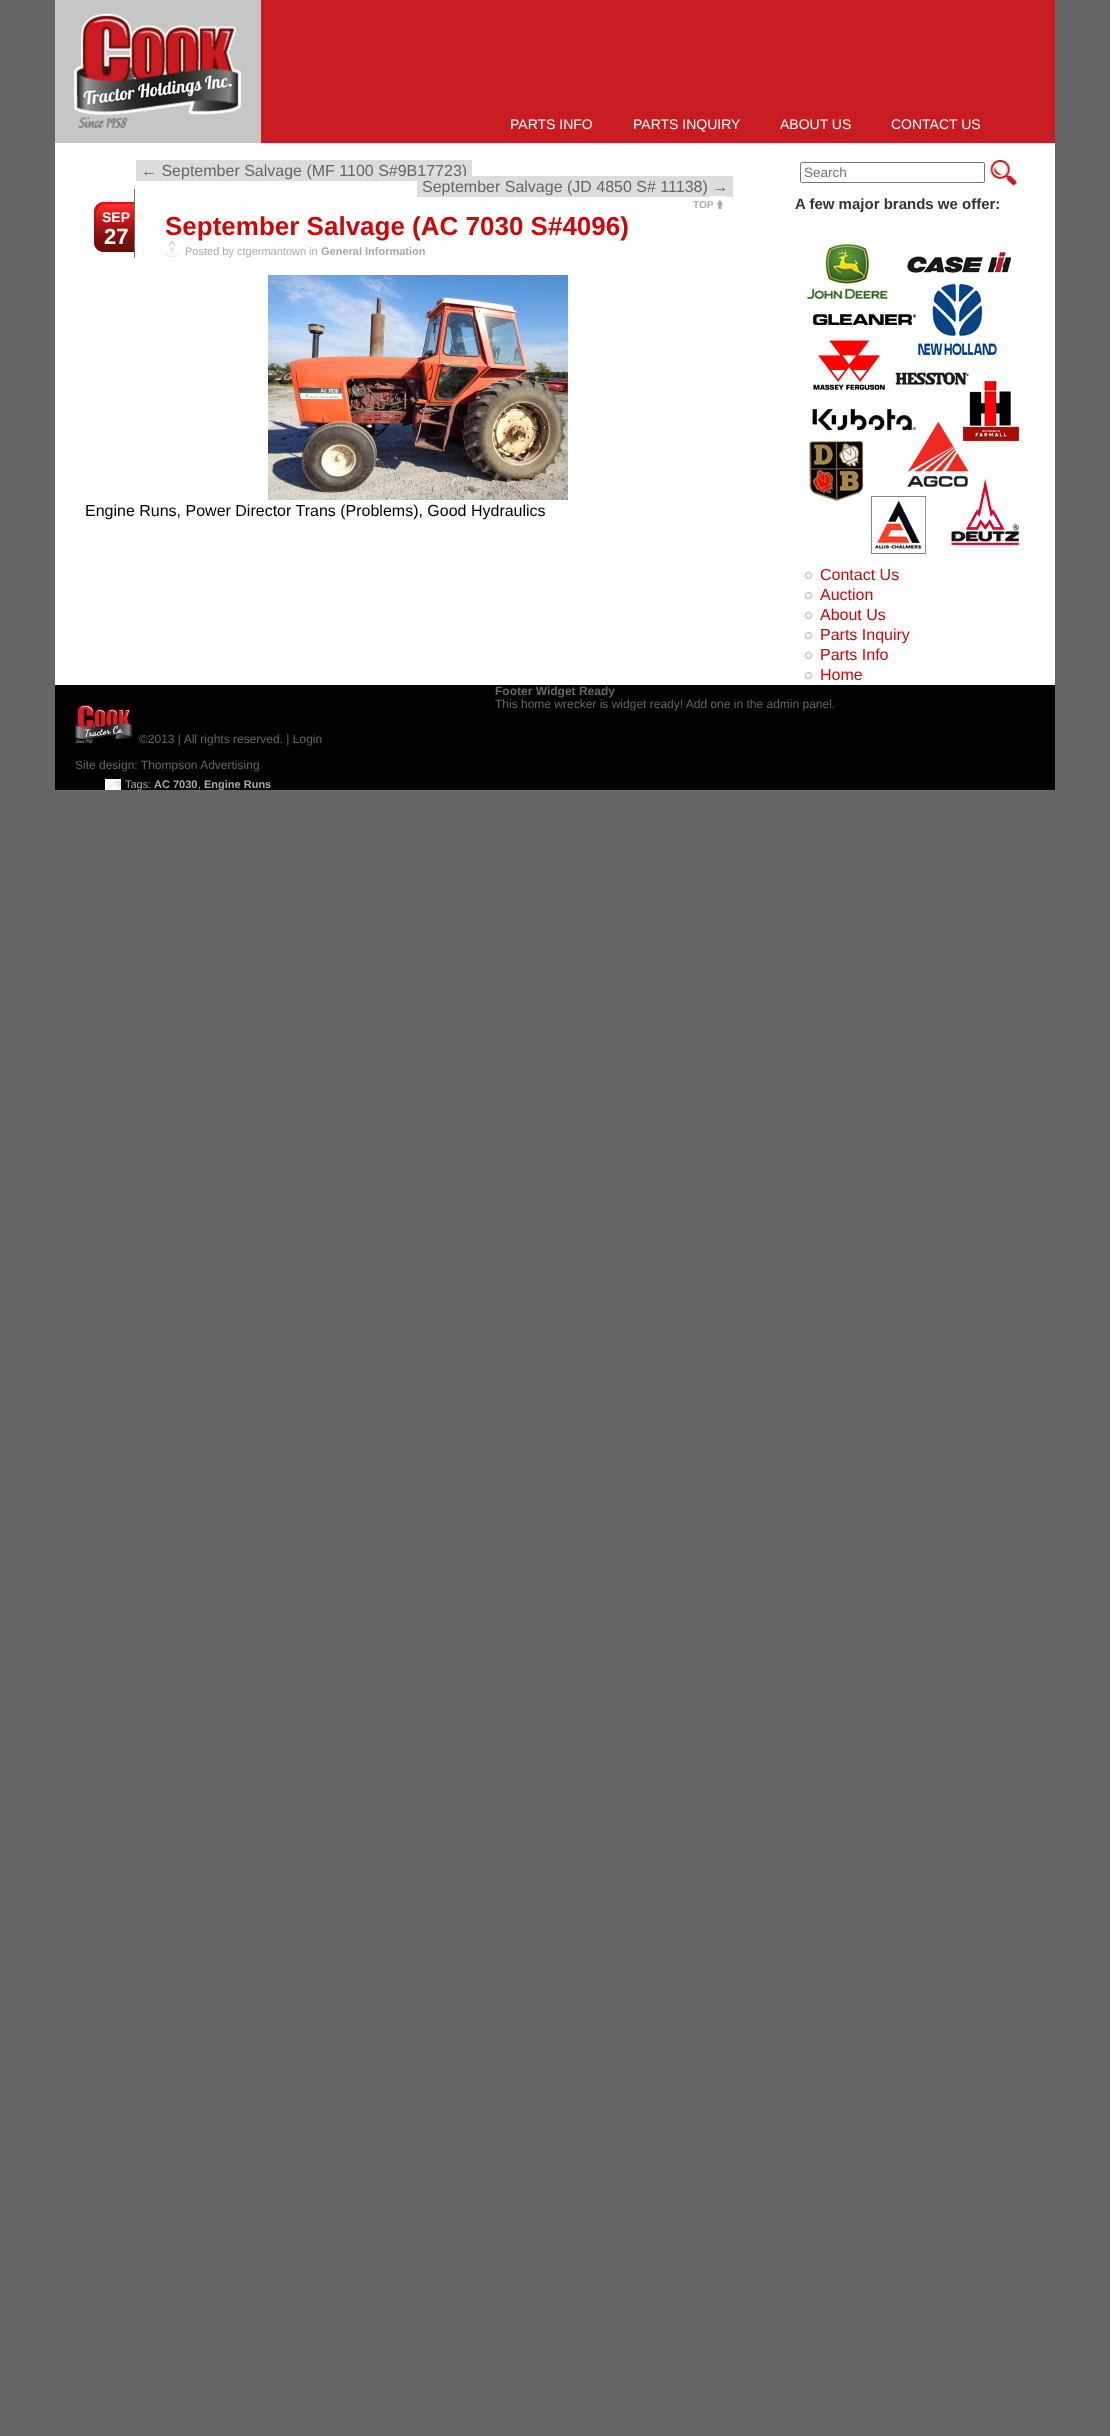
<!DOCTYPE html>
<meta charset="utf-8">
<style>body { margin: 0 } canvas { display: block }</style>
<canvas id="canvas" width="1110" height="2436"></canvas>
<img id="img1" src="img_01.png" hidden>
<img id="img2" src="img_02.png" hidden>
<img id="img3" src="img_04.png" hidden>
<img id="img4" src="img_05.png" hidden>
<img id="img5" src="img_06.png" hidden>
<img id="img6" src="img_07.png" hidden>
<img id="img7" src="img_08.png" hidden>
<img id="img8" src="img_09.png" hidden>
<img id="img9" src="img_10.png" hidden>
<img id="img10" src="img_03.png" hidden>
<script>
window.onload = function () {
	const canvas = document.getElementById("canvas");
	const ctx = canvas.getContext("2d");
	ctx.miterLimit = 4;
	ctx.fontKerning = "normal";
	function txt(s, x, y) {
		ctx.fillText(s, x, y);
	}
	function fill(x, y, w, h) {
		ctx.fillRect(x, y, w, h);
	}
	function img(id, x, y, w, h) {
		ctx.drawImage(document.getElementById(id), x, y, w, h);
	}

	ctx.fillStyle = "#666666";
	fill(0, 0, 1110, 2436);
	ctx.fillStyle = "#FFFFFF";
	fill(55, 143, 1000, 542);
	ctx.fillStyle = "#C91C22";
	fill(261, 0, 794, 143);
	img("img1", 55, 0, 206, 143);
	ctx.fillStyle = "#DDDDDD";
	fill(136, 160, 336, 21);
	img("img2", 94, 189, 41, 69);
	img("img3", 165, 241, 14, 16);
	img("img4", 268, 275, 300, 225);
	ctx.fillStyle = "#000000";
	fill(55, 685, 1000, 105);
	img("img5", 105, 779, 16, 11);
	ctx.beginPath();
	ctx.roundRect(800.5, 162.5, 184, 20, 1.5);
	ctx.strokeStyle = "#767676";
	ctx.stroke();
	img("img6", 990, 160, 27, 26);
	img("img7", 807, 243, 212, 311);
	img("img8", 804, 571, 9, 9);
	img("img8", 804, 591, 9, 9);
	img("img8", 804, 611, 9, 9);
	img("img8", 804, 631, 9, 9);
	img("img8", 804, 651, 9, 9);
	img("img8", 804, 671, 9, 9);
	img("img9", 75, 705, 57, 38);
	ctx.font = "14px Liberation Sans";
	ctx.fillStyle = "#FFFFFF";
	txt("PARTS INFO", 510, 129);
	txt("PARTS INQUIRY", 633, 129);
	txt("ABOUT US", 780, 129);
	txt("CONTACT US", 891, 129);
	ctx.font = "16px Liberation Sans";
	ctx.fillStyle = "#666666";
	txt("← September Salvage (MF 1100 S#9B17723)", 141, 176);
	ctx.fillStyle = "#DDDDDD";
	fill(417, 176, 316, 21);
	ctx.fillStyle = "#666666";
	txt("September Salvage (JD 4850 S# 11138) →", 422, 192);
	img("img10", 709, 196, 16, 13);
	ctx.font = "bold 10px Liberation Sans";
	ctx.fillStyle = "#AAAAAA";
	txt("TOP", 693, 208);
	ctx.font = "bold 14px Liberation Sans";
	ctx.fillStyle = "#FFFFFF";
	txt("SEP", 102, 222);
	ctx.font = "bold 22px Liberation Sans";
	txt("27", 104, 244);
	ctx.font = "bold 26px Liberation Sans";
	ctx.fillStyle = "#CE0709";
	txt("September Salvage (AC 7030 S#4096)", 165, 235);
	ctx.font = "11px Liberation Sans";
	ctx.fillStyle = "#AAAAAA";
	txt("Posted by ctgermantown in", 185, 255);
	ctx.font = "bold 11px Liberation Sans";
	txt("General Information", 321, 255);
	ctx.font = "16px Liberation Sans";
	ctx.fillStyle = "#000000";
	txt("Engine Runs, Power Director Trans (Problems), Good Hydraulics", 85, 516);
	ctx.save();
	ctx.beginPath();
	ctx.rect(105, 779, 166, 11);
	ctx.clip();
	ctx.font = "11px Liberation Sans";
	ctx.fillStyle = "#AAAAAA";
	txt("Tags:", 125, 788);
	ctx.restore();
	ctx.font = "bold 11px Liberation Sans";
	ctx.fillStyle = "#AAAAAA";
	txt("AC 7030", 154, 788);
	ctx.font = "11px Liberation Sans";
	txt(",", 198, 788);
	ctx.save();
	ctx.beginPath();
	ctx.rect(105, 779, 166, 11);
	ctx.clip();
	ctx.font = "bold 11px Liberation Sans";
	txt("Engine Runs", 204, 788);
	ctx.restore();
	ctx.font = "13.5px Liberation Sans";
	ctx.fillStyle = "#757575";
	txt("Search", 804, 177);
	ctx.font = "bold 15px Liberation Sans";
	ctx.fillStyle = "#333333";
	txt("A few major brands we offer:", 795, 209);
	ctx.font = "16px Liberation Sans";
	ctx.fillStyle = "#CE0709";
	txt("Contact Us", 820, 580);
	txt("Auction", 820, 600);
	txt("About Us", 820, 620);
	txt("Parts Inquiry", 820, 640);
	txt("Parts Info", 820, 660);
	txt("Home", 820, 680);
	ctx.font = "bold 12px Liberation Sans";
	ctx.fillStyle = "#666666";
	txt("Footer Widget Ready", 495, 695);
	ctx.font = "12px Liberation Sans";
	txt("This home wrecker is widget ready! Add one in the admin panel.", 495, 708);
	txt("©2013 | All rights reserved. | Login", 139, 743);
	txt("Site design: Thompson Advertising", 75, 769);
};
</script>
